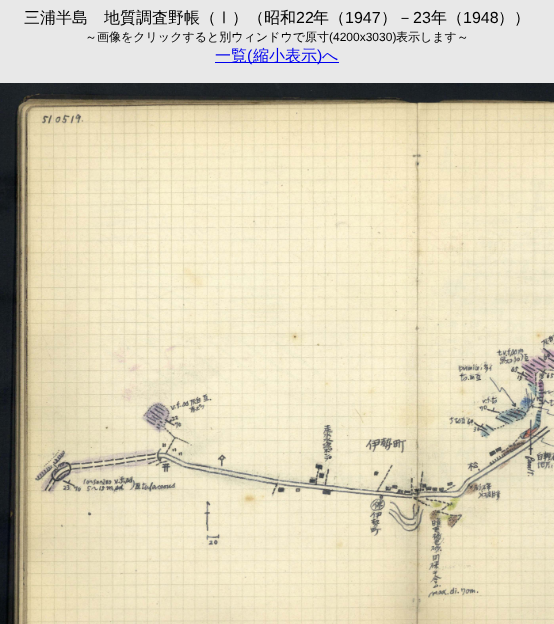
<!DOCTYPE html>
<meta charset="utf-8">
<style>body { margin: 0 } canvas { display: block }</style>
<canvas id="canvas" width="554" height="624"></canvas>
<img id="img1" src="img_01.png" hidden>
<script>
window.onload = function () {
	const canvas = document.getElementById("canvas");
	const ctx = canvas.getContext("2d");
	ctx.miterLimit = 4;
	ctx.fontKerning = "normal";
	function txt(s, x, y) {
		ctx.fillText(s, x, y);
	}
	function fill(x, y, w, h) {
		ctx.fillRect(x, y, w, h);
	}
	function img(id, x, y, w, h) {
		ctx.drawImage(document.getElementById(id), x, y, w, h);
	}

	ctx.fillStyle = "#E8E8E8";
	fill(0, 0, 554, 624);
	ctx.fillStyle = "#0000EE";
	fill(215, 62, 124, 1);
	img("img1", 0, 83, 554, 541);
	ctx.font = "500 16px WenQuanYi Zen Hei";
	ctx.fillStyle = "#000000";
	txt("三浦半島　地質調査野帳（Ⅰ）（昭和", 24, 23);
	ctx.font = "16px Liberation Sans";
	txt("22", 296, 23);
	ctx.font = "500 16px WenQuanYi Zen Hei";
	txt("年（", 313, 23);
	ctx.font = "16px Liberation Sans";
	txt("1947", 345, 23);
	ctx.font = "500 16px WenQuanYi Zen Hei";
	txt("）－", 381, 23);
	ctx.font = "16px Liberation Sans";
	txt("23", 413, 23);
	ctx.font = "500 16px WenQuanYi Zen Hei";
	txt("年（", 431, 23);
	ctx.font = "16px Liberation Sans";
	txt("1948", 463, 23);
	ctx.font = "500 16px WenQuanYi Zen Hei";
	txt("））", 498, 23);
	ctx.font = "500 12px WenQuanYi Zen Hei";
	txt("～画像をクリックすると別ウィンドウで原寸", 85, 41);
	ctx.font = "12px Liberation Sans";
	txt("(4200x3030)", 329, 41);
	ctx.font = "500 12px WenQuanYi Zen Hei";
	txt("表示します～", 396, 41);
	ctx.font = "500 16px WenQuanYi Zen Hei";
	ctx.fillStyle = "#0000EE";
	txt("一覧", 215, 61);
	ctx.font = "16px Liberation Sans";
	txt("(", 247, 61);
	ctx.font = "500 16px WenQuanYi Zen Hei";
	txt("縮小表示", 253, 61);
	ctx.font = "16px Liberation Sans";
	txt(")", 317, 61);
	ctx.font = "500 16px WenQuanYi Zen Hei";
	txt("へ", 322, 61);
};
</script>
